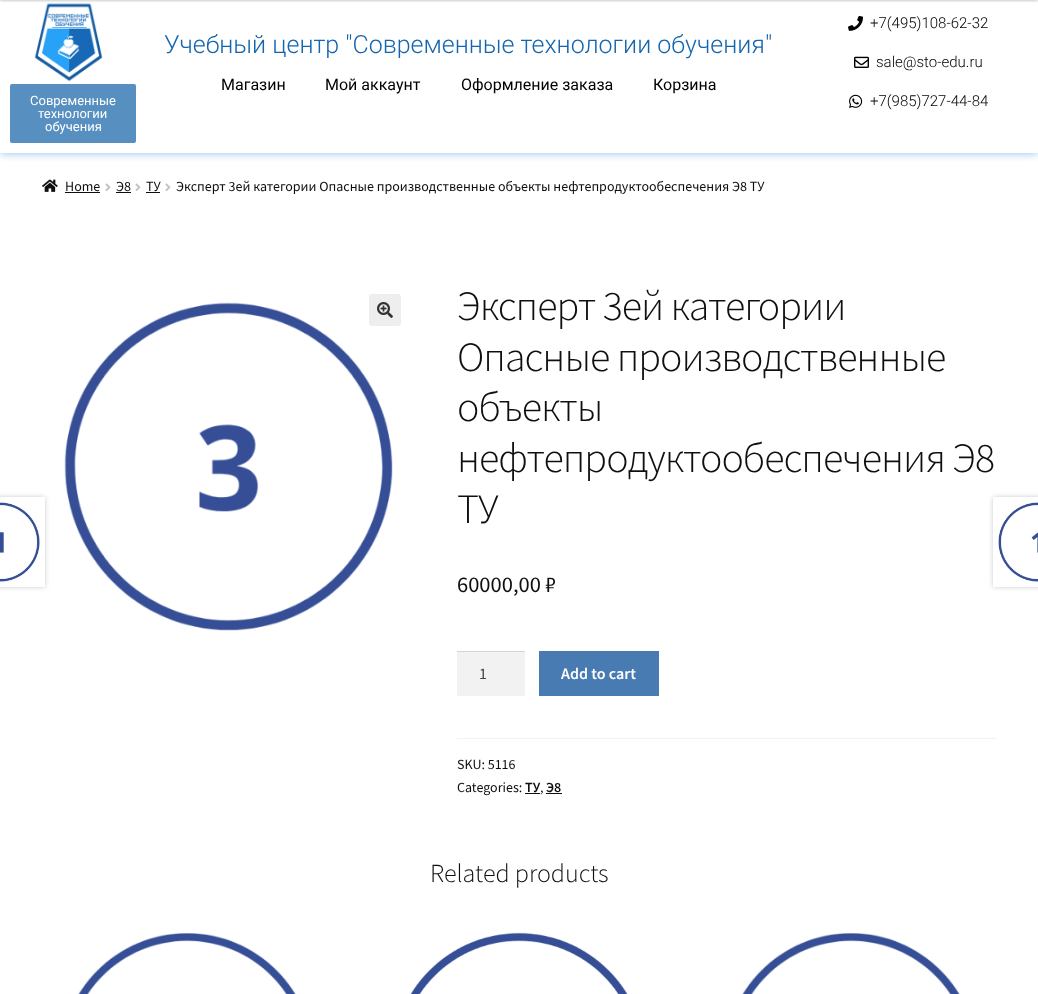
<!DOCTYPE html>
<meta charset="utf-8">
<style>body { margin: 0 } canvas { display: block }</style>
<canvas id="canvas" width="1038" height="994"></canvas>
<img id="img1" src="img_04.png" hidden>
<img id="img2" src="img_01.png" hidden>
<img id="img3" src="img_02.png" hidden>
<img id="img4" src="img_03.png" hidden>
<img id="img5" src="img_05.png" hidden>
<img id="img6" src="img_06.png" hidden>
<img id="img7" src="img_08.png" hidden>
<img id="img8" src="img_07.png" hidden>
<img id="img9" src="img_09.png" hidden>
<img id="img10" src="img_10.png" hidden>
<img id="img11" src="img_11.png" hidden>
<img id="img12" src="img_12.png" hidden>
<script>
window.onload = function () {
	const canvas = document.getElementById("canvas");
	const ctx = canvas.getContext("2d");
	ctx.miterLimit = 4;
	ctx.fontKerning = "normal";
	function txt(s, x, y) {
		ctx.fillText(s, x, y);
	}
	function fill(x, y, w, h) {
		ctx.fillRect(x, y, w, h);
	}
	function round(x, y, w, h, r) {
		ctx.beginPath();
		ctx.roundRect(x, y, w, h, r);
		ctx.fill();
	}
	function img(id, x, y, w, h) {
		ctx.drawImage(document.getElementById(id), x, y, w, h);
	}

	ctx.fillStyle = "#FFFFFF";
	fill(0, 0, 1038, 994);
	ctx.save();
	ctx.beginPath();
	ctx.rect(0, 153, 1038, 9);
	ctx.clip();
	ctx.fillStyle = "rgba(24, 130, 210, 0.5)";
	ctx.filter = "blur(5px)";
	ctx.beginPath();
	ctx.rect(0, -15, 1038, 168);
	ctx.fill();
	ctx.filter = "none";
	ctx.restore();
	img("img1", 34, 3, 69, 79);
	ctx.fillStyle = "rgba(0, 0, 0, 0.2)";
	ctx.filter = "blur(1px)";
	ctx.beginPath();
	ctx.rect(0, -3, 1038, 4);
	ctx.fill();
	ctx.filter = "none";
	img("img2", 848, 15, 15, 16);
	img("img3", 854, 56, 15, 12);
	img("img4", 849, 94, 14, 14);
	ctx.fillStyle = "#578FC0";
	round(10, 84, 126, 59, 2);
	img("img5", 42, 179, 16, 13);
	ctx.fillStyle = "#0F0F0F";
	fill(65, 192, 35, 1);
	img("img6", 105, 183, 6, 8);
	fill(116, 192, 15, 1);
	img("img6", 135, 183, 6, 8);
	fill(146, 192, 14, 1);
	img("img6", 165, 183, 6, 8);
	img("img7", 64, 302, 329, 329);
	ctx.fillStyle = "#EEEEEE";
	round(369, 294, 32, 32, 3);
	img("img8", 377, 302, 16, 16);
	ctx.fillStyle = "#F2F2F2";
	fill(457, 652, 68, 44);
	ctx.fillStyle = "#D4D4D4";
	fill(457, 651, 68, 1);
	ctx.fillStyle = "#477BB2";
	fill(539, 651, 120, 45);
	ctx.fillStyle = "#F2F2F2";
	fill(457, 738, 539, 1);
	ctx.fillStyle = "#0F0F0F";
	fill(525, 793, 15, 1);
	fill(546, 793, 16, 1);
	ctx.save();
	ctx.beginPath();
	ctx.moveTo(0, 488);
	ctx.lineTo(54, 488);
	ctx.lineTo(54, 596);
	ctx.lineTo(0, 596);
	ctx.closePath();
	ctx.moveTo(-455, 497);
	ctx.lineTo(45, 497);
	ctx.lineTo(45, 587);
	ctx.lineTo(-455, 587);
	ctx.closePath();
	ctx.clip("evenodd");
	ctx.fillStyle = "rgba(0, 0, 0, 0.2)";
	ctx.filter = "blur(2.5px)";
	ctx.beginPath();
	ctx.rect(-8, 497, 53, 90);
	ctx.fill();
	ctx.filter = "none";
	ctx.restore();
	img("img9", 0, 502, 40, 80);
	ctx.save();
	ctx.beginPath();
	ctx.moveTo(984, 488);
	ctx.lineTo(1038, 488);
	ctx.lineTo(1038, 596);
	ctx.lineTo(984, 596);
	ctx.closePath();
	ctx.moveTo(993, 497);
	ctx.lineTo(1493, 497);
	ctx.lineTo(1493, 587);
	ctx.lineTo(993, 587);
	ctx.closePath();
	ctx.clip("evenodd");
	ctx.fillStyle = "rgba(0, 0, 0, 0.2)";
	ctx.filter = "blur(2.5px)";
	ctx.beginPath();
	ctx.rect(993, 497, 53, 90);
	ctx.fill();
	ctx.filter = "none";
	ctx.restore();
	img("img10", 998, 502, 40, 80);
	img("img11", 78, 933, 218, 61);
	img("img12", 410, 932, 218, 62);
	img("img11", 742, 933, 218, 61);
	ctx.font = "300 25px Roboto";
	ctx.fillStyle = "#1465AD";
	txt("Учебный центр \"Современные технологии обучения\"", 164, 53);
	ctx.font = "16px Roboto";
	ctx.fillStyle = "#000000";
	txt("Магазин", 221, 90);
	txt("Мой аккаунт", 325, 90);
	txt("Оформление заказа", 461, 90);
	txt("Корзина", 653, 90);
	ctx.font = "300 15px Roboto";
	txt("+7(495)108-62-32", 870, 28);
	txt("sale@sto-edu.ru", 876, 67);
	txt("+7(985)727-44-84", 870, 106);
	ctx.font = "13px Roboto";
	ctx.fillStyle = "#FFFFFF";
	txt("Современные", 30, 105);
	txt("технологии", 38, 118);
	txt("обучения", 45, 131);
	ctx.font = "14px Source Sans Pro";
	ctx.fillStyle = "#0F0F0F";
	txt("Home", 65, 191);
	txt("Э8", 116, 191);
	txt("ТУ", 146, 191);
	txt("Эксперт 3ей категории Опасные производственные объекты нефтепродуктообеспечения Э8 ТУ", 176, 191);
	ctx.letterSpacing = "-1px";
	ctx.font = "300 41.9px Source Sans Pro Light";
	txt("Эксперт 3ей категории", 457, 320);
	txt("Опасные производственные", 457, 371);
	txt("объекты", 457, 421);
	txt("нефтепродуктообеспечения Э8", 457, 472);
	txt("ТУ", 457, 523);
	ctx.letterSpacing = "0px";
	ctx.font = "22.5px Source Sans Pro";
	txt("60000,00 ₽", 457, 592);
	ctx.font = "16px Source Sans Pro";
	ctx.fillStyle = "#43454B";
	txt("1", 479, 679);
	ctx.font = "600 16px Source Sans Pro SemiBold";
	ctx.fillStyle = "#FFFFFF";
	txt("Add to cart", 561, 679);
	ctx.font = "14px Source Sans Pro";
	ctx.fillStyle = "#0F0F0F";
	txt("SKU: 5116", 457, 769);
	txt("Categories:", 457, 792);
	ctx.font = "600 14px Source Sans Pro SemiBold";
	txt("ТУ", 525, 792);
	ctx.font = "14px Source Sans Pro";
	txt(",", 540, 792);
	ctx.font = "600 14px Source Sans Pro SemiBold";
	txt("Э8", 546, 792);
	ctx.font = "300 26px Source Sans Pro Light";
	txt("Related products", 430, 882);
};
</script>
